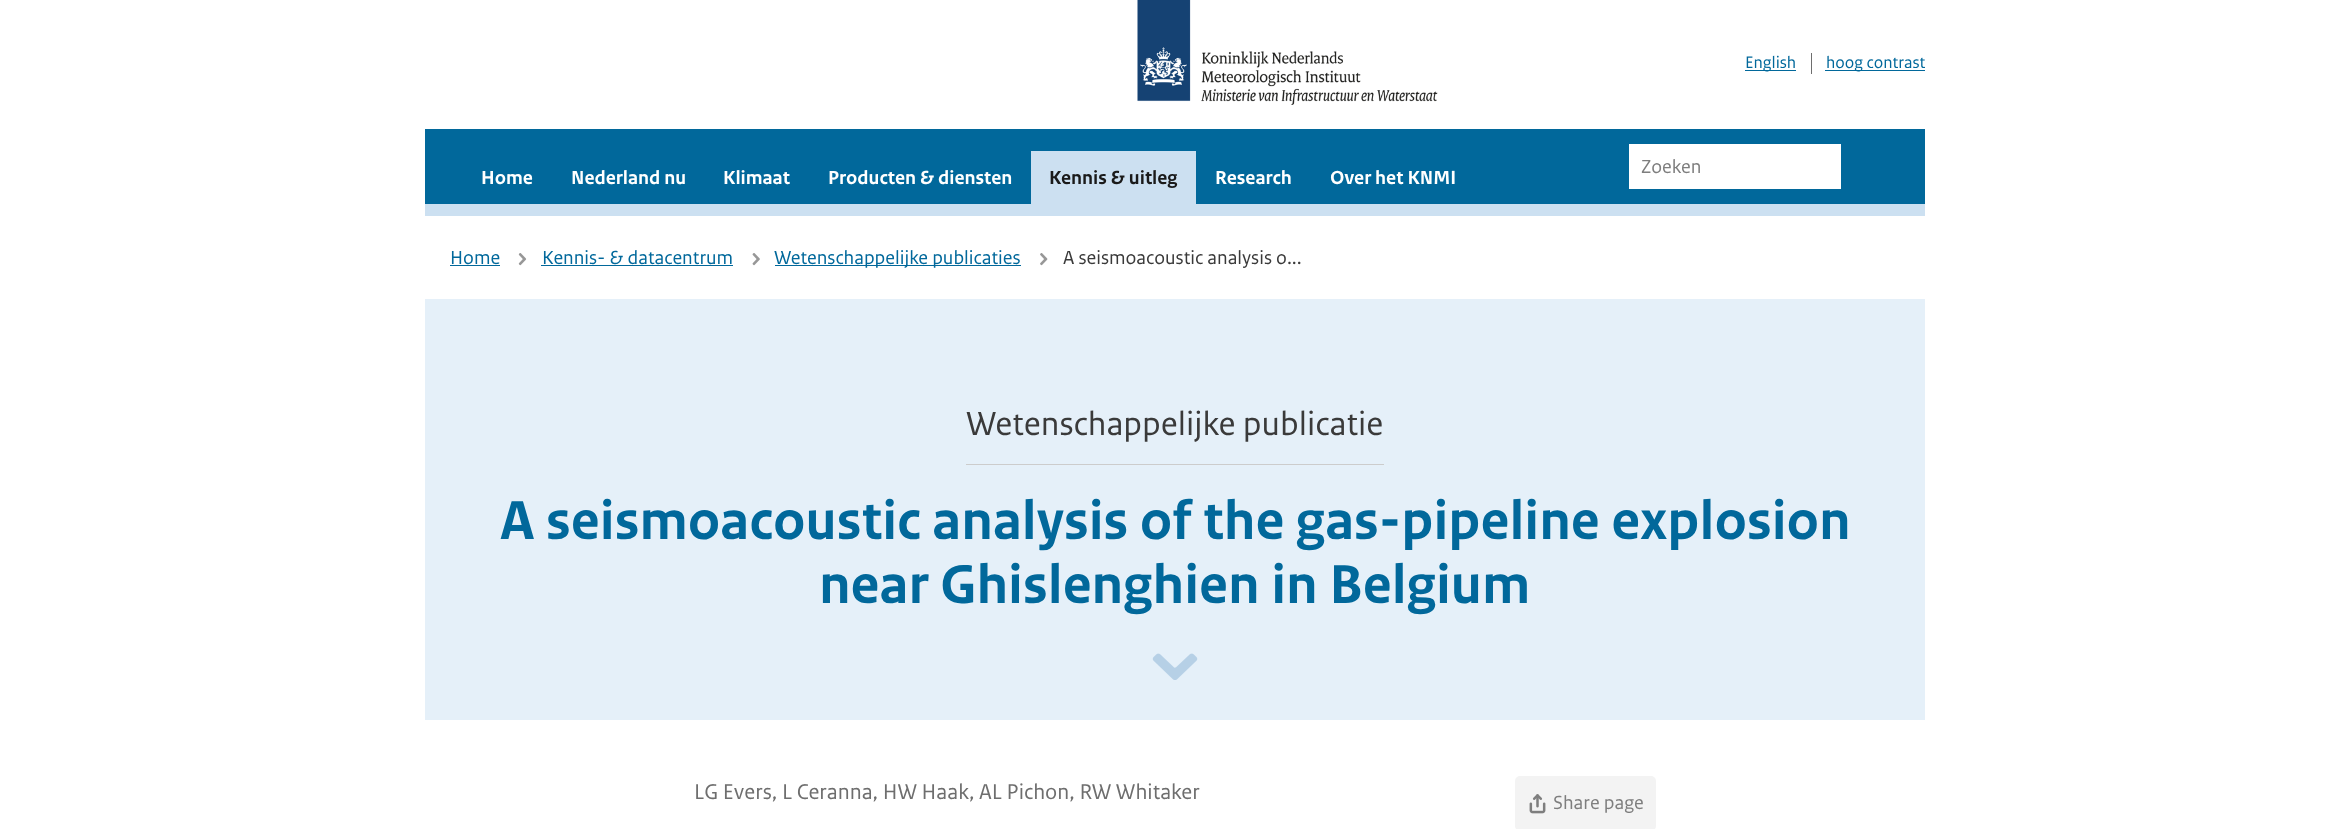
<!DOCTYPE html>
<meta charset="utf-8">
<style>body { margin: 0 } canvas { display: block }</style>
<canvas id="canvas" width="2349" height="829"></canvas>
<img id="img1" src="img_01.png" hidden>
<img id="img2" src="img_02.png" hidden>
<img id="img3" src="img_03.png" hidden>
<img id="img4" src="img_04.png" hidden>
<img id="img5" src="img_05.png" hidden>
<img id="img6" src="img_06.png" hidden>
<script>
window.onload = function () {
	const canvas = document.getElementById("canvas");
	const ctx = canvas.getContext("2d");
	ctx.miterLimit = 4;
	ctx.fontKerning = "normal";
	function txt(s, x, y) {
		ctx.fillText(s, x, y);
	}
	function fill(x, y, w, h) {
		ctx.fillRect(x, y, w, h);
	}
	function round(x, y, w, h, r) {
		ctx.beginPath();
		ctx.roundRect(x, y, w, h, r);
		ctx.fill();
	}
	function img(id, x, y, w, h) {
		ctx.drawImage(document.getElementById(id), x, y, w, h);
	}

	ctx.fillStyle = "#FFFFFF";
	fill(0, 0, 2349, 829);
	img("img1", 1137, 0, 301, 105);
	ctx.fillStyle = "#01689B";
	fill(1745, 70, 51, 1);
	ctx.fillStyle = "#6E6E6E";
	fill(1811, 53, 1, 21);
	ctx.fillStyle = "#01689B";
	fill(1825, 70, 100, 1);
	fill(425, 129, 1500, 75);
	ctx.fillStyle = "#CCE0F1";
	fill(425, 204, 1500, 12);
	ctx.fillStyle = "#FFFFFF";
	fill(1629, 144, 212, 45);
	ctx.fillStyle = "#CCE0F1";
	fill(1031, 151, 165, 53);
	ctx.fillStyle = "#01689B";
	fill(450, 265, 50, 1);
	img("img2", 518, 253, 9, 13);
	fill(541, 265, 192, 1);
	img("img3", 752, 253, 8, 13);
	fill(775, 265, 246, 1);
	img("img4", 1040, 253, 8, 13);
	ctx.fillStyle = "#E5F0F9";
	fill(425, 299, 1500, 421);
	ctx.fillStyle = "#CCCCCC";
	fill(966, 464, 418, 1);
	img("img5", 1152, 653, 46, 27);
	ctx.fillStyle = "#F3F3F3";
	round(1515, 776, 141, 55, 5);
	img("img6", 1529, 794, 17, 20);
	ctx.font = "17.5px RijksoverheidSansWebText";
	ctx.fillStyle = "#01689B";
	txt("English", 1745, 68);
	txt("hoog contrast", 1826, 68);
	ctx.font = "20px RijksoverheidSansWebText";
	ctx.fillStyle = "#7E7E7E";
	txt("Zoeken", 1641, 173);
	ctx.font = "bold 20px RijksoverheidSansWebText";
	ctx.fillStyle = "#FFFFFF";
	txt("Home", 481, 184);
	txt("Nederland nu", 571, 184);
	txt("Klimaat", 723, 184);
	txt("Producten & diensten", 828, 184);
	ctx.fillStyle = "#1A1A1A";
	txt("Kennis & uitleg", 1049, 184);
	ctx.fillStyle = "#FFFFFF";
	txt("Research", 1215, 184);
	txt("Over het KNMI", 1330, 184);
	ctx.font = "20px RijksoverheidSansWebText";
	ctx.fillStyle = "#01689B";
	txt("Home", 450, 264);
	txt("Kennis- & datacentrum", 542, 264);
	txt("Wetenschappelijke publicaties", 774, 264);
	ctx.fillStyle = "#3A3A3A";
	txt("A seismoacoustic analysis o...", 1063, 264);
	ctx.font = "35px RijksoverheidSansWebText";
	txt("Wetenschappelijke publicatie", 966, 435);
	ctx.font = "bold 57.5px RijksoverheidSansWebText";
	ctx.fillStyle = "#01689B";
	txt("A seismoacoustic analysis of the gas-pipeline explosion", 500, 539);
	txt("near Ghislenghien in Belgium", 819, 603);
	ctx.font = "22.5px RijksoverheidSansWebText";
	ctx.fillStyle = "#6E6E6E";
	txt("LG Evers, L Ceranna, HW Haak, AL Pichon, RW Whitaker", 694, 799);
	ctx.font = "20px RijksoverheidSansWebText";
	ctx.fillStyle = "#7E7E7E";
	txt("Share page", 1553, 809);
};
</script>
